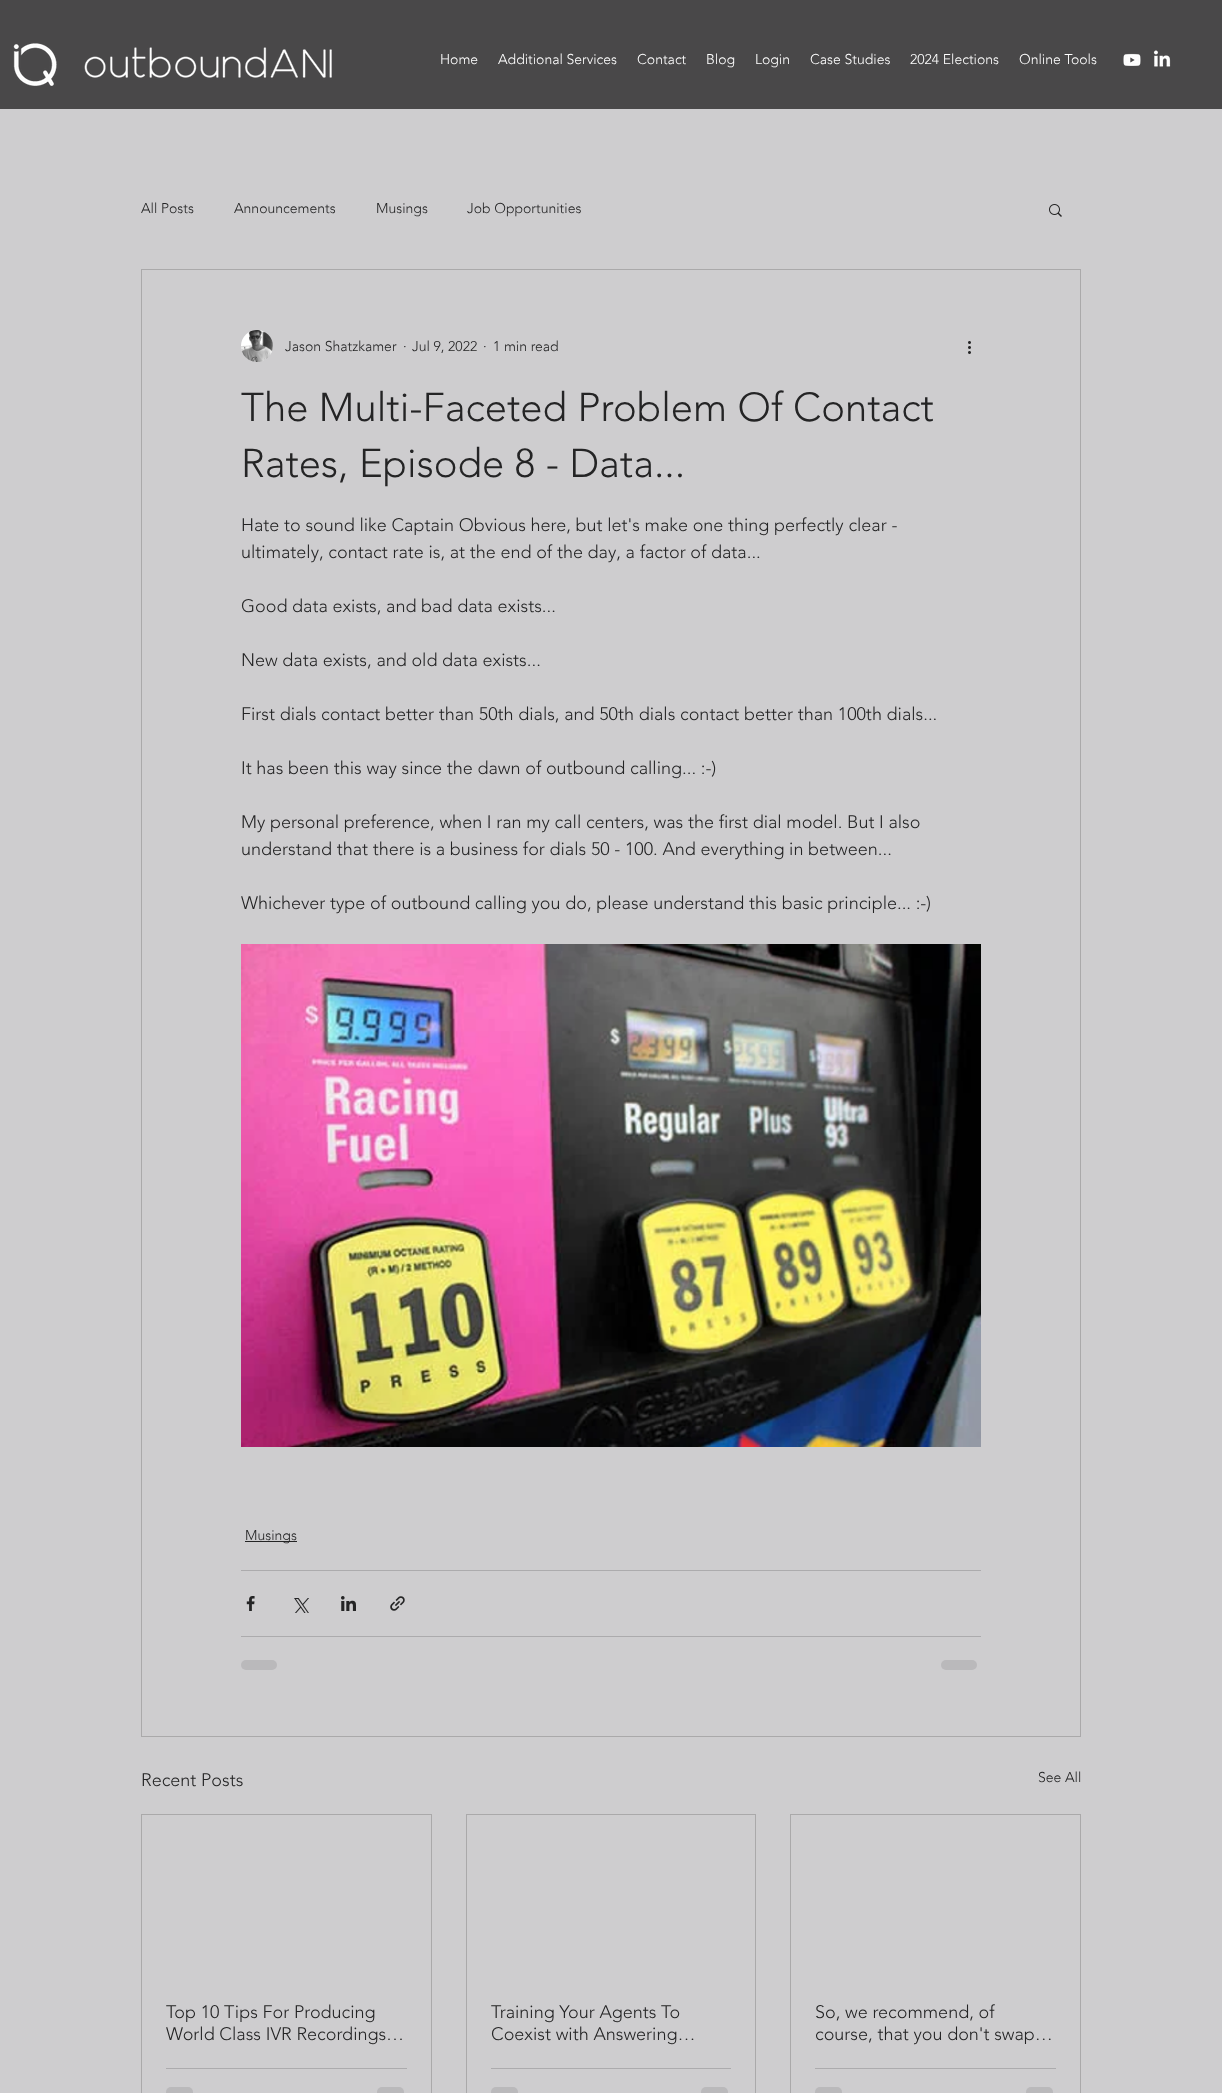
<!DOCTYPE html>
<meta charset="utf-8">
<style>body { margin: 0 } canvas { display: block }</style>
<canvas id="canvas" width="1222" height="2093"></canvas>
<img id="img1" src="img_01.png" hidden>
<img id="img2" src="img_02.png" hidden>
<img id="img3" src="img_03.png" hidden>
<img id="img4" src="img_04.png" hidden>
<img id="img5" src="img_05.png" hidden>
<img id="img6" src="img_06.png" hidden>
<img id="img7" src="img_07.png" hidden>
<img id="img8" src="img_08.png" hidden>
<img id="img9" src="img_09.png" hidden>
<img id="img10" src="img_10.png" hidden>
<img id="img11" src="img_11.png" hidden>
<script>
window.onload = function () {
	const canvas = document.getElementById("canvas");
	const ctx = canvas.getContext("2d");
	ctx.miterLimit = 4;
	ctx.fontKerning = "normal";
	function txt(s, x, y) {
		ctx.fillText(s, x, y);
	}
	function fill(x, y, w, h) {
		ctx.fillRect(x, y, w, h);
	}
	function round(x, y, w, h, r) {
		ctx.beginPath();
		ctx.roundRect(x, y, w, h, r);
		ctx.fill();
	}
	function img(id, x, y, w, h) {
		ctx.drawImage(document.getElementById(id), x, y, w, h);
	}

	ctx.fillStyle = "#CECDCF";
	fill(0, 0, 1222, 2093);
	ctx.fillStyle = "#494849";
	fill(0, 0, 1222, 109);
	img("img1", 13, 43, 319, 43);
	img("img2", 1123, 53, 18, 13);
	img("img3", 1153, 50, 18, 17);
	img("img4", 1049, 204, 13, 13);
	ctx.strokeStyle = "#AAA9AA";
	ctx.strokeRect(141.5, 269.5, 939, 1467);
	img("img5", 241, 330, 32, 32);
	img("img6", 968, 341, 3, 13);
	img("img7", 241, 944, 740, 503);
	ctx.fillStyle = "#242425";
	fill(245, 1541, 52, 1);
	ctx.fillStyle = "#ACABAD";
	fill(241, 1570, 740, 1);
	img("img8", 246, 1596, 9, 15);
	img("img9", 294, 1598, 15, 15);
	img("img10", 341, 1596, 15, 15);
	img("img11", 390, 1596, 15, 15);
	fill(241, 1636, 740, 1);
	ctx.fillStyle = "#BAB9BB";
	round(241, 1660, 36, 10, 5);
	round(941, 1660, 36, 10, 5);
	ctx.strokeRect(141.5, 1814.5, 290, 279);
	ctx.fillStyle = "#ACABAD";
	fill(166, 2068, 241, 1);
	ctx.fillStyle = "#BAB9BB";
	round(166, 2087, 27, 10, 5);
	round(377, 2087, 27, 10, 5);
	ctx.strokeRect(466.5, 1814.5, 289, 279);
	ctx.fillStyle = "#ACABAD";
	fill(491, 2068, 240, 1);
	ctx.fillStyle = "#BAB9BB";
	round(491, 2087, 27, 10, 5);
	round(701, 2087, 27, 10, 5);
	ctx.strokeRect(790.5, 1814.5, 290, 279);
	ctx.fillStyle = "#ACABAD";
	fill(815, 2068, 241, 1);
	ctx.fillStyle = "#BAB9BB";
	round(815, 2087, 27, 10, 5);
	round(1026, 2087, 27, 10, 5);
	ctx.font = "300 14px 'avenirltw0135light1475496'";
	ctx.fillStyle = "#FFFFFF";
	txt("Home", 440, 64);
	txt("Additional Services", 498, 64);
	txt("Contact", 637, 64);
	txt("Blog", 706, 64);
	txt("Login", 755, 64);
	txt("Case Studies", 810, 64);
	txt("2024 Elections", 910, 64);
	txt("Online Tools", 1019, 64);
	ctx.fillStyle = "#242425";
	txt("All Posts", 141, 213);
	txt("Announcements", 234, 213);
	txt("Musings", 376, 213);
	txt("Job Opportunities", 467, 213);
	txt("Jason Shatzkamer", 285, 351);
	txt("·", 403, 351);
	txt("Jul 9, 2022", 412, 351);
	txt("·", 483, 351);
	txt("1 min read", 493, 351);
	ctx.font = "300 40px 'avenirltw0135light1475496'";
	txt("The Multi-Faceted Problem Of Contact", 241, 421);
	txt("Rates, Episode 8 - Data...", 241, 477);
	ctx.font = "300 18px 'avenirltw0135light1475496'";
	txt("Hate to sound like Captain Obvious here, but let's make one thing perfectly clear -", 241, 531);
	txt("ultimately, contact rate is, at the end of the day, a factor of data...", 241, 558);
	txt("Good data exists, and bad data exists...", 241, 612);
	txt("New data exists, and old data exists...", 241, 666);
	txt("First dials contact better than 50th dials, and 50th dials contact better than 100th dials...", 241, 720);
	txt("It has been this way since the dawn of outbound calling... :-)", 241, 774);
	txt("My personal preference, when I ran my call centers, was the first dial model. But I also", 241, 828);
	txt("understand that there is a business for dials 50 - 100. And everything in between...", 241, 855);
	txt("Whichever type of outbound calling you do, please understand this basic principle... :-)", 241, 909);
	ctx.font = "300 14px 'avenirltw0135light1475496'";
	txt("Musings", 245, 1540);
	ctx.font = "300 18px 'avenirltw0135light1475496'";
	txt("Recent Posts", 141, 1786);
	ctx.font = "300 14px 'avenirltw0135light1475496'";
	txt("See All", 1038, 1782);
	ctx.font = "300 18px 'avenirltw0135light1475496'";
	txt("Top 10 Tips For Producing", 166, 2018);
	txt("World Class IVR Recordings…", 166, 2040);
	txt("Training Your Agents To", 491, 2018);
	txt("Coexist with Answering…", 491, 2040);
	txt("So, we recommend, of", 815, 2018);
	txt("course, that you don't swap…", 815, 2040);
};
</script>
